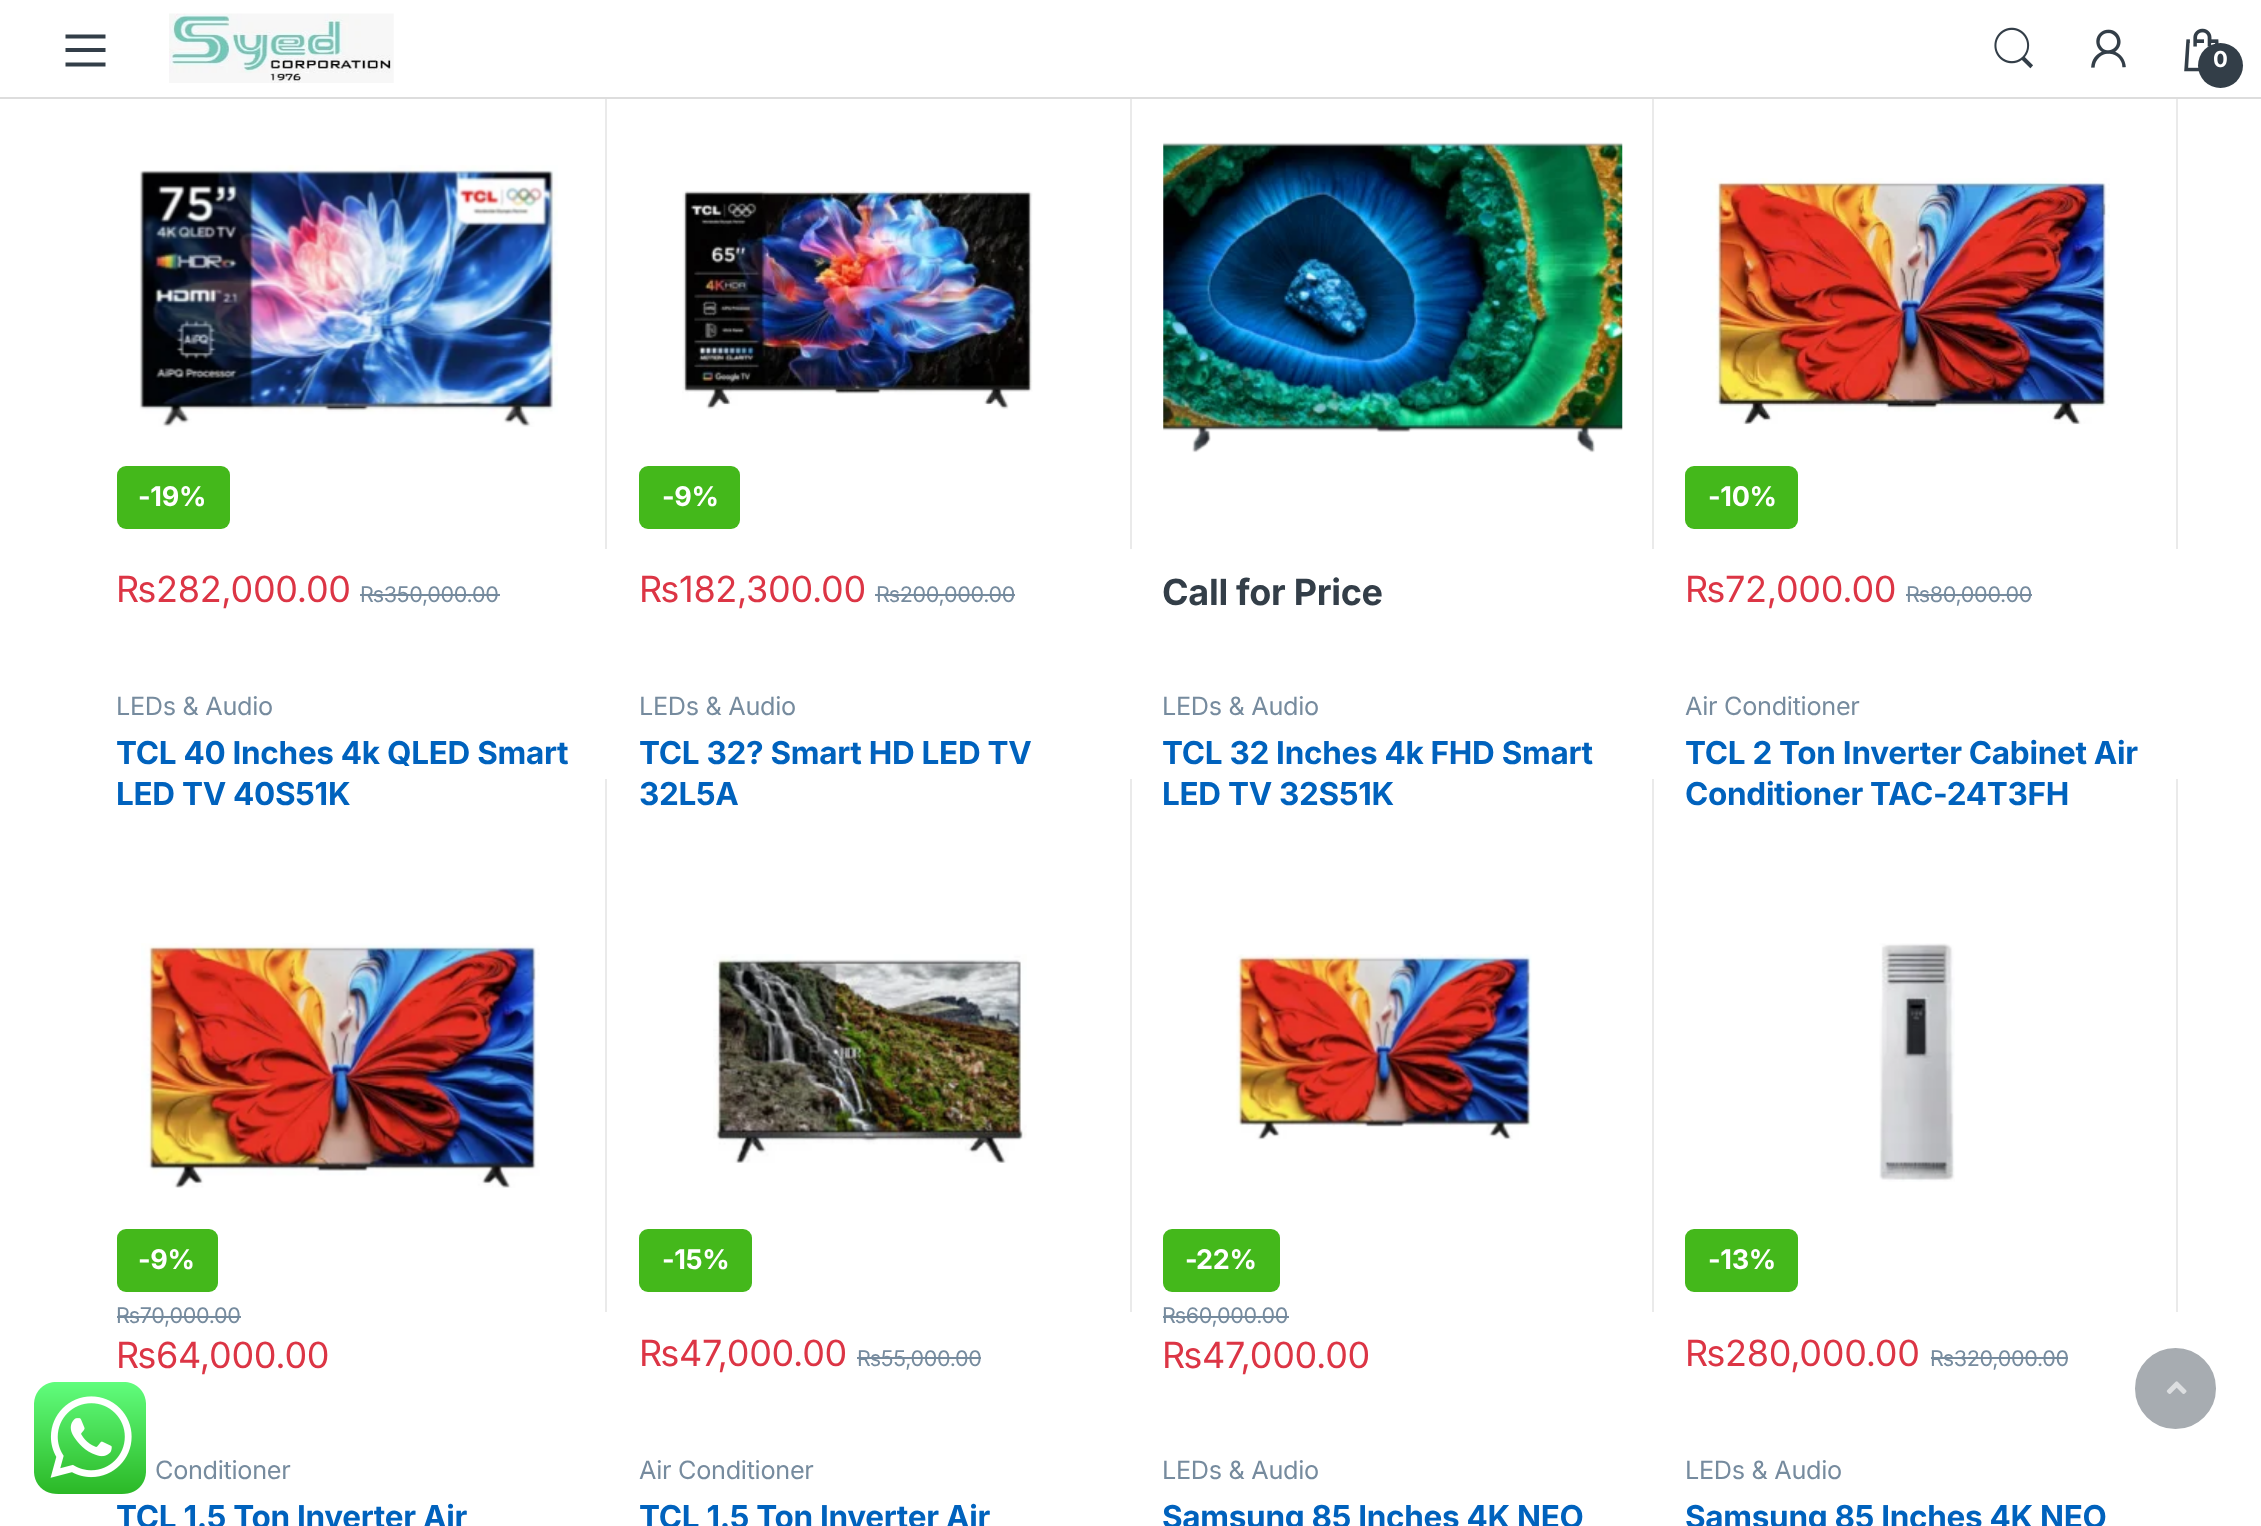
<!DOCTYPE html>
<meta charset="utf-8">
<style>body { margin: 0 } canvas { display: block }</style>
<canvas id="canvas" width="2261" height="1526"></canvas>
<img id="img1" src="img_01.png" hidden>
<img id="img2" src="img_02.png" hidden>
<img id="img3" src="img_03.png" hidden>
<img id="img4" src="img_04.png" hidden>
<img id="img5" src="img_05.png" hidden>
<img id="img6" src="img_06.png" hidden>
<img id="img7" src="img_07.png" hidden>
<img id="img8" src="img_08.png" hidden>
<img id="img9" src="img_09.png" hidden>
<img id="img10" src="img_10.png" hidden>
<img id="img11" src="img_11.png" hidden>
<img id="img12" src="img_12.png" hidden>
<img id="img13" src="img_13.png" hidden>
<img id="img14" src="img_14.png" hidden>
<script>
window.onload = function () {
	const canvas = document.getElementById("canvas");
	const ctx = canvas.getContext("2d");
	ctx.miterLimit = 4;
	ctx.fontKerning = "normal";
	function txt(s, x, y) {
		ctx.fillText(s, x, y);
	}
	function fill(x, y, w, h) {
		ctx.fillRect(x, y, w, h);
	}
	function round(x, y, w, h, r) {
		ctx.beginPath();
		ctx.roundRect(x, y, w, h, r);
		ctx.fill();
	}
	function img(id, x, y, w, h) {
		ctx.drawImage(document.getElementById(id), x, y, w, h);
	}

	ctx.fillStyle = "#FFFFFF";
	fill(0, 0, 2261, 1526);
	ctx.fillStyle = "#DDDDDD";
	fill(0, 97, 2261, 2);
	ctx.fillStyle = "#333E48";
	ctx.beginPath();
	ctx.moveTo(65.5, 66.5);
	ctx.lineTo(65.5, 62.5);
	ctx.lineTo(105.5, 62.5);
	ctx.lineTo(105.5, 66.5);
	ctx.closePath();
	ctx.moveTo(65.5, 48);
	ctx.lineTo(105.5, 48);
	ctx.lineTo(105.5, 52);
	ctx.lineTo(65.5, 52);
	ctx.closePath();
	ctx.moveTo(65.5, 34.5);
	ctx.lineTo(105.5, 34.5);
	ctx.lineTo(105.5, 38.5);
	ctx.lineTo(65.5, 38.5);
	ctx.closePath();
	ctx.fill();
	img("img1", 169, 13, 225, 70);
	img("img2", 1994, 27, 39, 42);
	img("img3", 2091, 29, 35, 39);
	img("img4", 2184, 28, 35, 44);
	ctx.beginPath();
	ctx.arc(2220.5, 65.5, 22.5, 0, Math.PI * 2);
	ctx.fill();
	img("img5", 139, 165, 419, 262);
	ctx.fillStyle = "#44B81B";
	round(117, 466, 113, 63, 9);
	ctx.fillStyle = "#768B9E";
	fill(360, 594, 140, 2);
	ctx.fillStyle = "#EAEAEA";
	fill(605, 99, 2, 450);
	img("img6", 682, 190, 351, 220);
	ctx.fillStyle = "#44B81B";
	round(639, 466, 101, 63, 9);
	ctx.fillStyle = "#768B9E";
	fill(875, 594, 140, 2);
	ctx.fillStyle = "#EAEAEA";
	fill(1130, 99, 2, 450);
	fill(1652, 99, 2, 450);
	img("img7", 1163, 142, 460, 311);
	img("img8", 1710, 178, 400, 247);
	ctx.fillStyle = "#44B81B";
	round(1685, 466, 113, 63, 9);
	ctx.fillStyle = "#768B9E";
	fill(1906, 594, 126, 2);
	ctx.fillStyle = "#EAEAEA";
	fill(2176, 99, 2, 450);
	img("img9", 141, 943, 399, 245);
	ctx.fillStyle = "#44B81B";
	round(117, 1229, 101, 63, 9);
	ctx.fillStyle = "#768B9E";
	fill(117, 1316, 124, 2);
	ctx.fillStyle = "#EAEAEA";
	fill(605, 779, 2, 533);
	img("img10", 713, 954, 314, 209);
	ctx.fillStyle = "#44B81B";
	round(639, 1229, 113, 63, 9);
	ctx.fillStyle = "#768B9E";
	fill(857, 1357, 124, 2);
	ctx.fillStyle = "#EAEAEA";
	fill(1130, 779, 2, 533);
	img("img11", 1236, 954, 296, 186);
	ctx.fillStyle = "#44B81B";
	round(1163, 1229, 117, 63, 9);
	ctx.fillStyle = "#768B9E";
	fill(1163, 1316, 126, 2);
	ctx.fillStyle = "#EAEAEA";
	fill(1652, 779, 2, 533);
	img("img12", 1879, 943, 76, 239);
	ctx.fillStyle = "#44B81B";
	round(1685, 1229, 113, 63, 9);
	ctx.fillStyle = "#768B9E";
	fill(1931, 1357, 137, 2);
	ctx.fillStyle = "#EAEAEA";
	fill(2176, 779, 2, 533);
	img("img13", 34, 1382, 112, 112);
	ctx.fillStyle = "#A7ACB1";
	ctx.beginPath();
	ctx.arc(2175.5, 1388.5, 39.5, 0, Math.PI * 2);
	ctx.fill();
	ctx.strokeStyle = "#A7ACB1";
	ctx.lineWidth = 2;
	ctx.stroke();
	img("img14", 2166, 1381, 21, 13);
	ctx.letterSpacing = "-0.3px";
	ctx.font = "bold 22px Inter";
	ctx.fillStyle = "#FFFFFF";
	txt("0", 2213, 67);
	ctx.font = "bold 27px Inter";
	txt("-19%", 138, 506);
	ctx.font = "36px Inter";
	ctx.fillStyle = "#DC3545";
	txt("₨282,000.00", 116, 602);
	ctx.font = "21.5px Inter";
	ctx.fillStyle = "#768B9E";
	txt("₨350,000.00", 360, 602);
	ctx.font = "bold 27px Inter";
	ctx.fillStyle = "#FFFFFF";
	txt("-9%", 662, 506);
	ctx.font = "36px Inter";
	ctx.fillStyle = "#DC3545";
	txt("₨182,300.00", 639, 602);
	ctx.font = "21.5px Inter";
	ctx.fillStyle = "#768B9E";
	txt("₨200,000.00", 876, 602);
	ctx.font = "bold 36px Inter";
	ctx.fillStyle = "#333E48";
	txt("Call for Price", 1162, 605);
	ctx.font = "bold 27px Inter";
	ctx.fillStyle = "#FFFFFF";
	txt("-10%", 1708, 506);
	ctx.font = "36px Inter";
	ctx.fillStyle = "#DC3545";
	txt("₨72,000.00", 1685, 602);
	ctx.font = "21.5px Inter";
	ctx.fillStyle = "#768B9E";
	txt("₨80,000.00", 1906, 602);
	ctx.font = "25.25px Inter";
	txt("LEDs & Audio", 116, 715);
	ctx.font = "bold 31.5px Inter";
	ctx.fillStyle = "#0062BD";
	txt("TCL 40 Inches 4k QLED Smart", 116, 764);
	txt("LED TV 40S51K", 116, 805);
	ctx.font = "bold 27px Inter";
	ctx.fillStyle = "#FFFFFF";
	txt("-9%", 138, 1269);
	ctx.font = "21.5px Inter";
	ctx.fillStyle = "#768B9E";
	txt("₨70,000.00", 116, 1323);
	ctx.font = "36px Inter";
	ctx.fillStyle = "#DC3545";
	txt("₨64,000.00", 116, 1368);
	ctx.font = "25.25px Inter";
	ctx.fillStyle = "#768B9E";
	txt("LEDs & Audio", 639, 715);
	ctx.font = "bold 31.5px Inter";
	ctx.fillStyle = "#0062BD";
	txt("TCL 32? Smart HD LED TV", 639, 764);
	txt("32L5A", 639, 805);
	ctx.font = "bold 27px Inter";
	ctx.fillStyle = "#FFFFFF";
	txt("-15%", 662, 1269);
	ctx.font = "36px Inter";
	ctx.fillStyle = "#DC3545";
	txt("₨47,000.00", 639, 1366);
	ctx.font = "21.5px Inter";
	ctx.fillStyle = "#768B9E";
	txt("₨55,000.00", 857, 1366);
	ctx.font = "25.25px Inter";
	txt("LEDs & Audio", 1162, 715);
	ctx.font = "bold 31.5px Inter";
	ctx.fillStyle = "#0062BD";
	txt("TCL 32 Inches 4k FHD Smart", 1162, 764);
	txt("LED TV 32S51K", 1162, 805);
	ctx.font = "bold 27px Inter";
	ctx.fillStyle = "#FFFFFF";
	txt("-", 1185, 1269);
	txt("22%", 1196, 1269);
	ctx.font = "21.5px Inter";
	ctx.fillStyle = "#768B9E";
	txt("₨60,000.00", 1162, 1323);
	ctx.font = "36px Inter";
	ctx.fillStyle = "#DC3545";
	txt("₨47,000.00", 1162, 1368);
	ctx.font = "25.25px Inter";
	ctx.fillStyle = "#768B9E";
	txt("Air Conditioner", 1685, 715);
	ctx.font = "bold 31.5px Inter";
	ctx.fillStyle = "#0062BD";
	txt("TCL 2 Ton Inverter Cabinet Air", 1685, 764);
	txt("Conditioner TAC-24T3FH", 1685, 805);
	ctx.font = "bold 27px Inter";
	ctx.fillStyle = "#FFFFFF";
	txt("-13%", 1708, 1269);
	ctx.font = "36px Inter";
	ctx.fillStyle = "#DC3545";
	txt("₨280,000.00", 1685, 1366);
	ctx.font = "21.5px Inter";
	ctx.fillStyle = "#768B9E";
	txt("₨320,000.00", 1930, 1366);
	ctx.font = "25.25px Inter";
	txt("Conditioner", 155, 1479);
	ctx.font = "bold 31.5px Inter";
	ctx.fillStyle = "#0062BD";
	txt("TCL 1.5 Ton Inverter Air", 116, 1528);
	ctx.font = "25.25px Inter";
	ctx.fillStyle = "#768B9E";
	txt("Air Conditioner", 639, 1479);
	ctx.font = "bold 31.5px Inter";
	ctx.fillStyle = "#0062BD";
	txt("TCL 1.5 Ton Inverter Air", 639, 1528);
	ctx.font = "25.25px Inter";
	ctx.fillStyle = "#768B9E";
	txt("LEDs & Audio", 1162, 1479);
	ctx.font = "bold 31.5px Inter";
	ctx.fillStyle = "#0062BD";
	txt("Samsung 85 Inches 4K NEO", 1162, 1528);
	ctx.font = "25.25px Inter";
	ctx.fillStyle = "#768B9E";
	txt("LEDs & Audio", 1685, 1479);
	ctx.font = "bold 31.5px Inter";
	ctx.fillStyle = "#0062BD";
	txt("Samsung 85 Inches 4K NEO", 1685, 1528);
};
</script>
